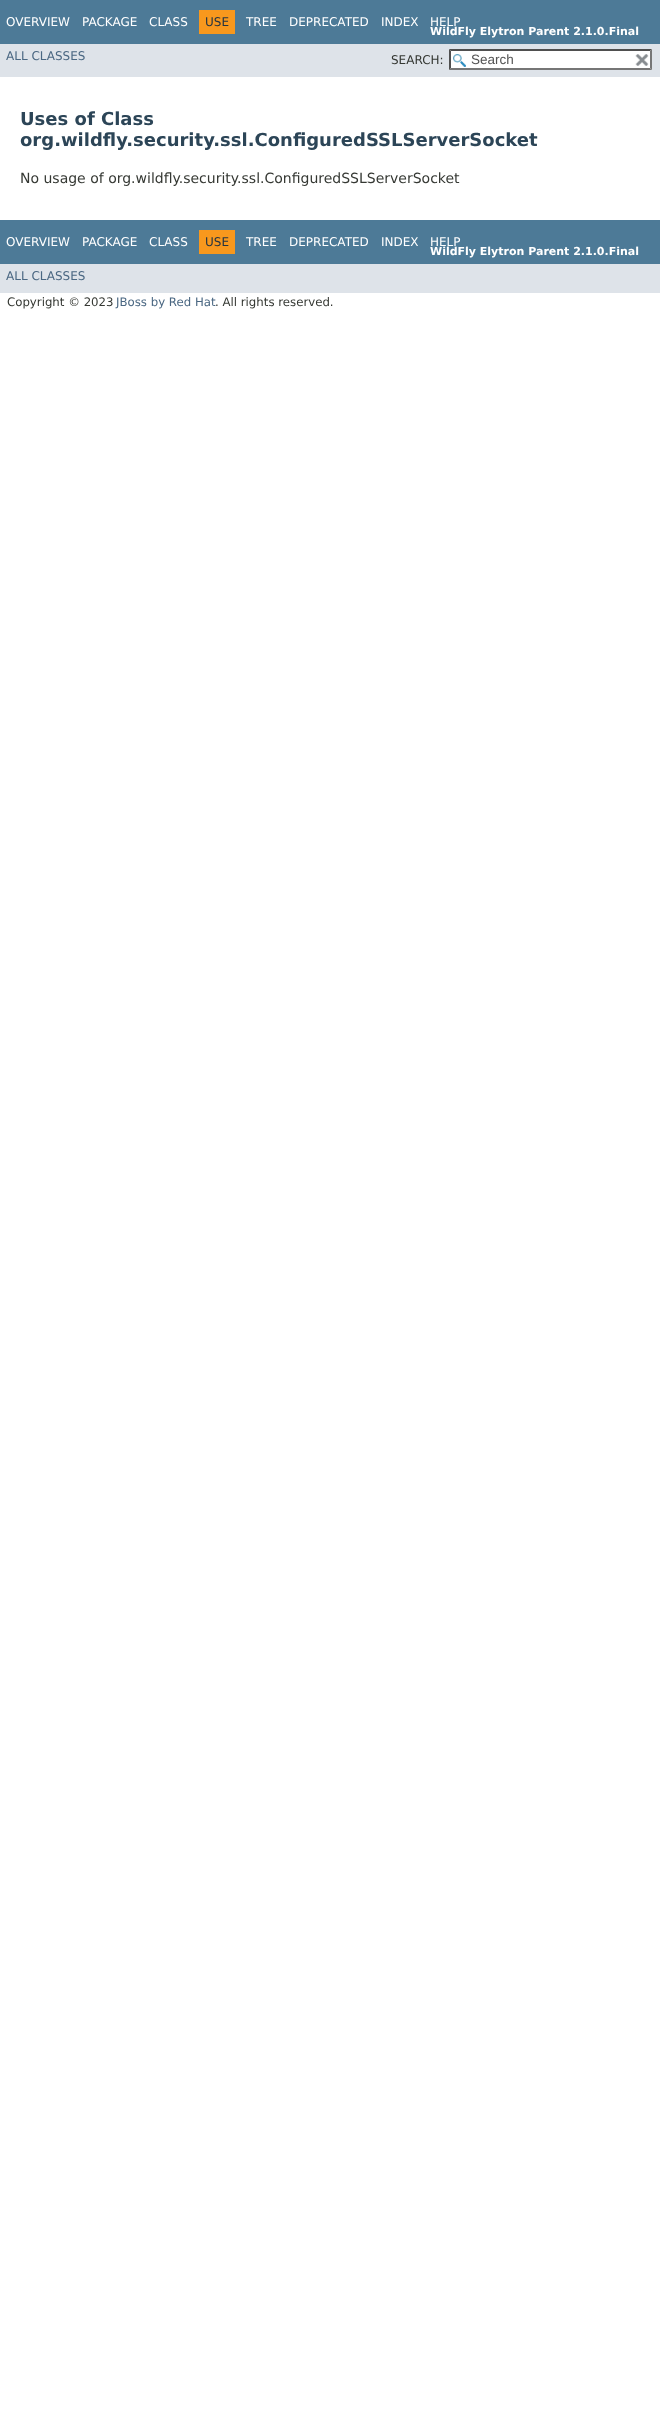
<!DOCTYPE html>
<meta charset="utf-8">
<style>body { margin: 0 } canvas { display: block }</style>
<canvas id="canvas" width="660" height="2428"></canvas>
<img id="img1" src="img_01.png" hidden>
<img id="img2" src="img_02.png" hidden>
<script>
window.onload = function () {
	const canvas = document.getElementById("canvas");
	const ctx = canvas.getContext("2d");
	ctx.miterLimit = 4;
	ctx.fontKerning = "normal";
	function txt(s, x, y) {
		ctx.fillText(s, x, y);
	}
	function fill(x, y, w, h) {
		ctx.fillRect(x, y, w, h);
	}
	function img(id, x, y, w, h) {
		ctx.drawImage(document.getElementById(id), x, y, w, h);
	}

	ctx.fillStyle = "#FFFFFF";
	fill(0, 0, 660, 2428);
	ctx.fillStyle = "#4D7A97";
	fill(0, 0, 660, 44);
	ctx.fillStyle = "#F8981D";
	fill(199, 10, 36, 24);
	ctx.fillStyle = "#DEE3E9";
	fill(0, 44, 660, 33);
	ctx.fillStyle = "#FFFFFF";
	fill(449, 49, 203, 21);
	img("img1", 453, 54, 13, 13);
	ctx.fillStyle = "#4F4F4F";
	ctx.beginPath();
	ctx.moveTo(449, 49);
	ctx.lineTo(652, 49);
	ctx.lineTo(650, 51);
	ctx.lineTo(451, 51);
	ctx.closePath();
	ctx.fill();
	ctx.fillStyle = "#767676";
	ctx.beginPath();
	ctx.moveTo(652, 49);
	ctx.lineTo(652, 70);
	ctx.lineTo(650, 68);
	ctx.lineTo(650, 51);
	ctx.closePath();
	ctx.fill();
	ctx.beginPath();
	ctx.moveTo(652, 70);
	ctx.lineTo(449, 70);
	ctx.lineTo(451, 68);
	ctx.lineTo(650, 68);
	ctx.closePath();
	ctx.fill();
	ctx.fillStyle = "#4F4F4F";
	ctx.beginPath();
	ctx.moveTo(449, 70);
	ctx.lineTo(449, 49);
	ctx.lineTo(451, 51);
	ctx.lineTo(451, 68);
	ctx.closePath();
	ctx.fill();
	img("img2", 635, 54, 14, 12);
	ctx.fillStyle = "#4D7A97";
	fill(0, 220, 660, 44);
	ctx.fillStyle = "#F8981D";
	fill(199, 230, 36, 24);
	ctx.fillStyle = "#DEE3E9";
	fill(0, 264, 660, 29);
	ctx.font = "12px DejaVu Sans";
	ctx.fillStyle = "#FFFFFF";
	txt("OVERVIEW", 6, 26);
	txt("PACKAGE", 82, 26);
	txt("CLASS", 149, 26);
	ctx.fillStyle = "#253441";
	txt("USE", 205, 26);
	ctx.fillStyle = "#FFFFFF";
	txt("TREE", 246, 26);
	txt("DEPRECATED", 289, 26);
	txt("INDEX", 381, 26);
	txt("HELP", 430, 26);
	ctx.font = "bold 11px DejaVu Sans";
	txt("WildFly Elytron Parent 2.1.0.Final", 430, 35);
	ctx.font = "12px DejaVu Sans";
	ctx.fillStyle = "#4A6782";
	txt("ALL CLASSES", 6, 60);
	ctx.fillStyle = "#353833";
	txt("SEARCH:", 391, 64);
	ctx.font = "13.5px Liberation Sans";
	ctx.fillStyle = "#545454";
	txt("Search", 471, 64);
	ctx.font = "bold 18px DejaVu Sans";
	ctx.fillStyle = "#2C4557";
	txt("Uses of Class", 20, 125);
	txt("org.wildfly.security.ssl.ConfiguredSSLServerSocket", 20, 146);
	ctx.font = "14px DejaVu Sans";
	ctx.fillStyle = "#353833";
	txt("No usage of org.wildfly.security.ssl.ConfiguredSSLServerSocket", 20, 183);
	ctx.font = "12px DejaVu Sans";
	ctx.fillStyle = "#FFFFFF";
	txt("OVERVIEW", 6, 246);
	txt("PACKAGE", 82, 246);
	txt("CLASS", 149, 246);
	ctx.fillStyle = "#253441";
	txt("USE", 205, 246);
	ctx.fillStyle = "#FFFFFF";
	txt("TREE", 246, 246);
	txt("DEPRECATED", 289, 246);
	txt("INDEX", 381, 246);
	txt("HELP", 430, 246);
	ctx.font = "bold 11px DejaVu Sans";
	txt("WildFly Elytron Parent 2.1.0.Final", 430, 255);
	ctx.font = "12px DejaVu Sans";
	ctx.fillStyle = "#4A6782";
	txt("ALL CLASSES", 6, 280);
	ctx.font = "11.75px DejaVu Sans";
	ctx.fillStyle = "#353833";
	txt("Copyright © 2023", 7, 306);
	ctx.fillStyle = "#4A6782";
	txt("JBoss by Red Hat", 116, 306);
	ctx.fillStyle = "#353833";
	txt(". All rights reserved.", 215, 306);
};
</script>
